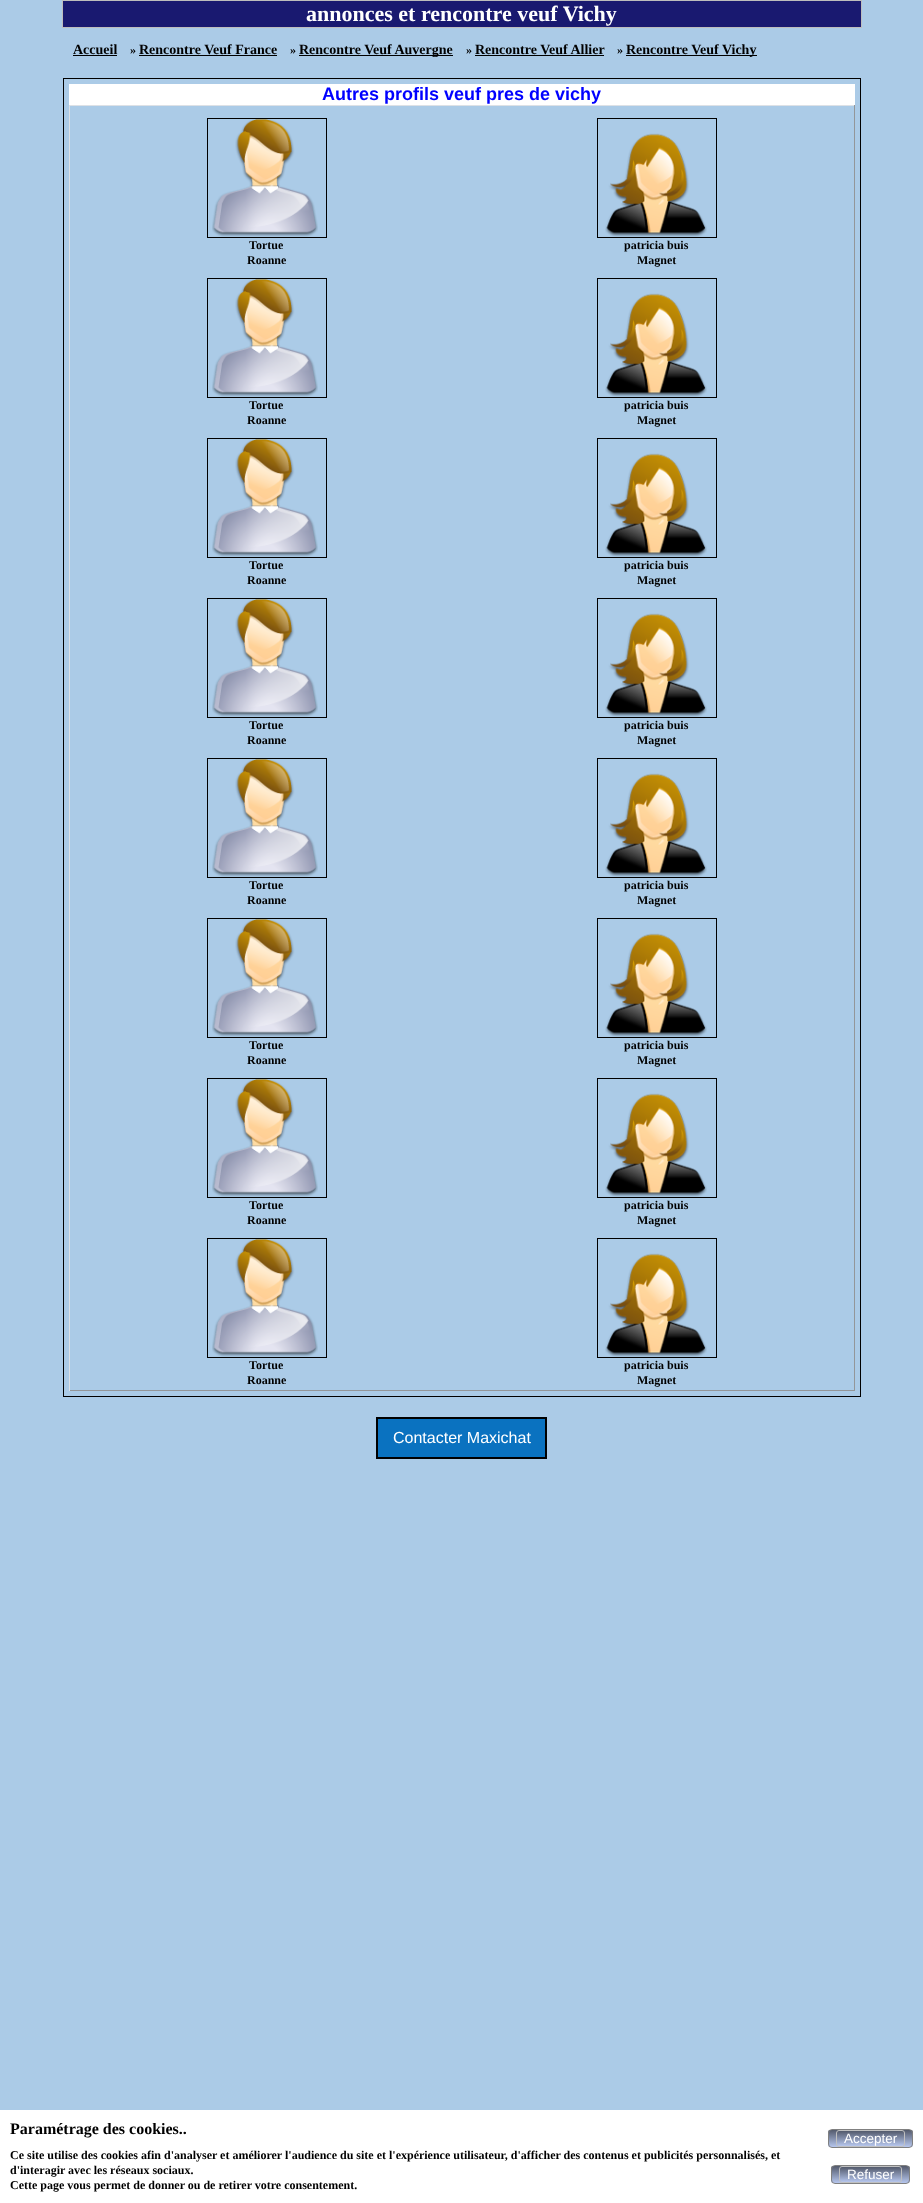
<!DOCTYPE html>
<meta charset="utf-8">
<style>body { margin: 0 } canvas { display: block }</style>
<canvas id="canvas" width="923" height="2203"></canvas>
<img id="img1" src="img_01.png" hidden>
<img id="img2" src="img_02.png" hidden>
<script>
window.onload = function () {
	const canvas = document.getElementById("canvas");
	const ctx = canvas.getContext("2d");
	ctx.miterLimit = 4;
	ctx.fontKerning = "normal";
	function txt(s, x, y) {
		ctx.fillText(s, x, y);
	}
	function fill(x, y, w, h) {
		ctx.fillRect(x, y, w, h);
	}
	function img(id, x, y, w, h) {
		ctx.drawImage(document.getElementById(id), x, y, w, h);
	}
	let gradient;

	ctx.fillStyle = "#ABCBE7";
	fill(0, 0, 923, 2203);
	ctx.strokeStyle = "#BDBDBD";
	ctx.strokeRect(62.5, 0.5, 799, 27);
	ctx.fillStyle = "#191970";
	fill(63, 1, 798, 26);
	ctx.fillStyle = "#000000";
	fill(73, 55, 44, 1);
	fill(139, 55, 138, 1);
	fill(299, 55, 154, 1);
	fill(475, 55, 129, 1);
	fill(626, 55, 131, 1);
	ctx.strokeStyle = "#000000";
	ctx.strokeRect(63.5, 78.5, 797, 1318);
	ctx.fillStyle = "#FFFFFF";
	fill(69, 84, 786, 21);
	ctx.fillStyle = "#DDE1E6";
	fill(69, 105, 786, 1);
	ctx.fillStyle = "#939699";
	fill(854, 105, 1, 1286);
	fill(69, 1390, 786, 1);
	ctx.fillStyle = "#DDE1E6";
	fill(69, 105, 1, 1286);
	ctx.strokeRect(207.5, 118.5, 119, 119);
	img("img1", 212, 119, 106, 118);
	ctx.strokeRect(597.5, 118.5, 119, 119);
	img("img2", 605, 133, 102, 104);
	ctx.strokeRect(207.5, 278.5, 119, 119);
	img("img1", 212, 279, 106, 118);
	ctx.strokeRect(597.5, 278.5, 119, 119);
	img("img2", 605, 293, 102, 104);
	ctx.strokeRect(207.5, 438.5, 119, 119);
	img("img1", 212, 439, 106, 118);
	ctx.strokeRect(597.5, 438.5, 119, 119);
	img("img2", 605, 453, 102, 104);
	ctx.strokeRect(207.5, 598.5, 119, 119);
	img("img1", 212, 599, 106, 118);
	ctx.strokeRect(597.5, 598.5, 119, 119);
	img("img2", 605, 613, 102, 104);
	ctx.strokeRect(207.5, 758.5, 119, 119);
	img("img1", 212, 759, 106, 118);
	ctx.strokeRect(597.5, 758.5, 119, 119);
	img("img2", 605, 773, 102, 104);
	ctx.strokeRect(207.5, 918.5, 119, 119);
	img("img1", 212, 919, 106, 118);
	ctx.strokeRect(597.5, 918.5, 119, 119);
	img("img2", 605, 933, 102, 104);
	ctx.strokeRect(207.5, 1078.5, 119, 119);
	img("img1", 212, 1079, 106, 118);
	ctx.strokeRect(597.5, 1078.5, 119, 119);
	img("img2", 605, 1093, 102, 104);
	ctx.strokeRect(207.5, 1238.5, 119, 119);
	img("img1", 212, 1239, 106, 118);
	ctx.strokeRect(597.5, 1238.5, 119, 119);
	img("img2", 605, 1253, 102, 104);
	ctx.fillStyle = "#0A72C0";
	ctx.beginPath();
	ctx.rect(377, 1418, 169, 40);
	ctx.fill();
	ctx.lineWidth = 2;
	ctx.stroke();
	ctx.fillStyle = "#FFFFFF";
	fill(0, 2110, 923, 93);
	ctx.save();
	ctx.beginPath();
	ctx.roundRect(828, 2129, 85, 19, 4);
	ctx.clip();
	gradient = ctx.createLinearGradient(871, 2130, 871, 2147);
	gradient.addColorStop(0, "#535A6C");
	gradient.addColorStop(1, "#B6C6ED");
	ctx.fillStyle = gradient;
	fill(828, 2130, 85, 17);
	ctx.restore();
	ctx.beginPath();
	ctx.roundRect(828.5, 2129.5, 84, 18, 3.5);
	ctx.strokeStyle = "#808080";
	ctx.lineWidth = 1;
	ctx.stroke();
	ctx.save();
	ctx.beginPath();
	ctx.roundRect(836, 2130, 69, 17, 3);
	ctx.clip();
	gradient = ctx.createLinearGradient(871, 2131, 871, 2146);
	gradient.addColorStop(0, "#535A6C");
	gradient.addColorStop(1, "#B6C6ED");
	ctx.fillStyle = gradient;
	fill(836, 2131, 69, 15);
	ctx.restore();
	ctx.beginPath();
	ctx.roundRect(836.5, 2130.5, 68, 16, 2.5);
	ctx.strokeStyle = "#C0C0C0";
	ctx.stroke();
	ctx.save();
	ctx.beginPath();
	ctx.roundRect(831, 2165, 79, 19, 4);
	ctx.clip();
	gradient = ctx.createLinearGradient(871, 2166, 871, 2183);
	gradient.addColorStop(0, "#535A6C");
	gradient.addColorStop(1, "#B6C6ED");
	ctx.fillStyle = gradient;
	fill(831, 2166, 79, 17);
	ctx.restore();
	ctx.beginPath();
	ctx.roundRect(831.5, 2165.5, 78, 18, 3.5);
	ctx.strokeStyle = "#808080";
	ctx.stroke();
	ctx.save();
	ctx.beginPath();
	ctx.roundRect(839, 2166, 63, 17, 3);
	ctx.clip();
	gradient = ctx.createLinearGradient(871, 2167, 871, 2182);
	gradient.addColorStop(0, "#535A6C");
	gradient.addColorStop(1, "#B6C6ED");
	ctx.fillStyle = gradient;
	fill(839, 2167, 63, 15);
	ctx.restore();
	ctx.beginPath();
	ctx.roundRect(839.5, 2166.5, 62, 16, 2.5);
	ctx.strokeStyle = "#C0C0C0";
	ctx.stroke();
	ctx.font = "bold 22px Liberation Serif";
	txt("annonces et rencontre veuf Vichy", 306, 21);
	ctx.font = "bold 14px Liberation Serif";
	ctx.fillStyle = "#000000";
	txt("Accueil", 73, 54);
	ctx.font = "bold 12px Liberation Serif";
	txt("»", 130, 54);
	ctx.font = "bold 14px Liberation Serif";
	txt("Rencontre Veuf France", 139, 54);
	ctx.font = "bold 12px Liberation Serif";
	txt("»", 290, 54);
	ctx.font = "bold 14px Liberation Serif";
	txt("Rencontre Veuf Auvergne", 299, 54);
	ctx.font = "bold 12px Liberation Serif";
	txt("»", 466, 54);
	ctx.font = "bold 14px Liberation Serif";
	txt("Rencontre Veuf Allier", 475, 54);
	ctx.font = "bold 12px Liberation Serif";
	txt("»", 617, 54);
	ctx.font = "bold 14px Liberation Serif";
	txt("Rencontre Veuf Vichy", 626, 54);
	ctx.font = "bold 18px Liberation Sans";
	ctx.fillStyle = "#0000FF";
	txt("Autres profils veuf pres de vichy", 322, 100);
	ctx.font = "bold 12px Liberation Serif";
	ctx.fillStyle = "#000000";
	txt("Tortue", 249, 249);
	txt("Roanne", 247, 264);
	txt("patricia buis", 624, 249);
	txt("Magnet", 637, 264);
	txt("Tortue", 249, 409);
	txt("Roanne", 247, 424);
	txt("patricia buis", 624, 409);
	txt("Magnet", 637, 424);
	txt("Tortue", 249, 569);
	txt("Roanne", 247, 584);
	txt("patricia buis", 624, 569);
	txt("Magnet", 637, 584);
	txt("Tortue", 249, 729);
	txt("Roanne", 247, 744);
	txt("patricia buis", 624, 729);
	txt("Magnet", 637, 744);
	txt("Tortue", 249, 889);
	txt("Roanne", 247, 904);
	txt("patricia buis", 624, 889);
	txt("Magnet", 637, 904);
	txt("Tortue", 249, 1049);
	txt("Roanne", 247, 1064);
	txt("patricia buis", 624, 1049);
	txt("Magnet", 637, 1064);
	txt("Tortue", 249, 1209);
	txt("Roanne", 247, 1224);
	txt("patricia buis", 624, 1209);
	txt("Magnet", 637, 1224);
	txt("Tortue", 249, 1369);
	txt("Roanne", 247, 1384);
	txt("patricia buis", 624, 1369);
	txt("Magnet", 637, 1384);
	ctx.font = "16px Liberation Sans";
	ctx.fillStyle = "#FFFFFF";
	txt("Contacter Maxichat", 393, 1443);
	ctx.font = "bold 16px Liberation Serif";
	ctx.fillStyle = "#000000";
	txt("Paramétrage des cookies..", 10, 2134);
	ctx.font = "bold 12px Liberation Serif";
	txt("Ce site utilise des cookies afin d'analyser et améliorer l'audience du site et l'expérience utilisateur, d'afficher des contenus et publicités personnalisés, et", 10, 2159);
	txt("d'interagir avec les réseaux sociaux.", 10, 2174);
	txt("Cette page vous permet de donner ou de retirer votre consentement.", 10, 2189);
	ctx.font = "13.5px Liberation Sans";
	ctx.fillStyle = "#FFFFFF";
	txt("Accepter", 844, 2143);
	txt("Refuser", 847, 2179);
};
</script>
